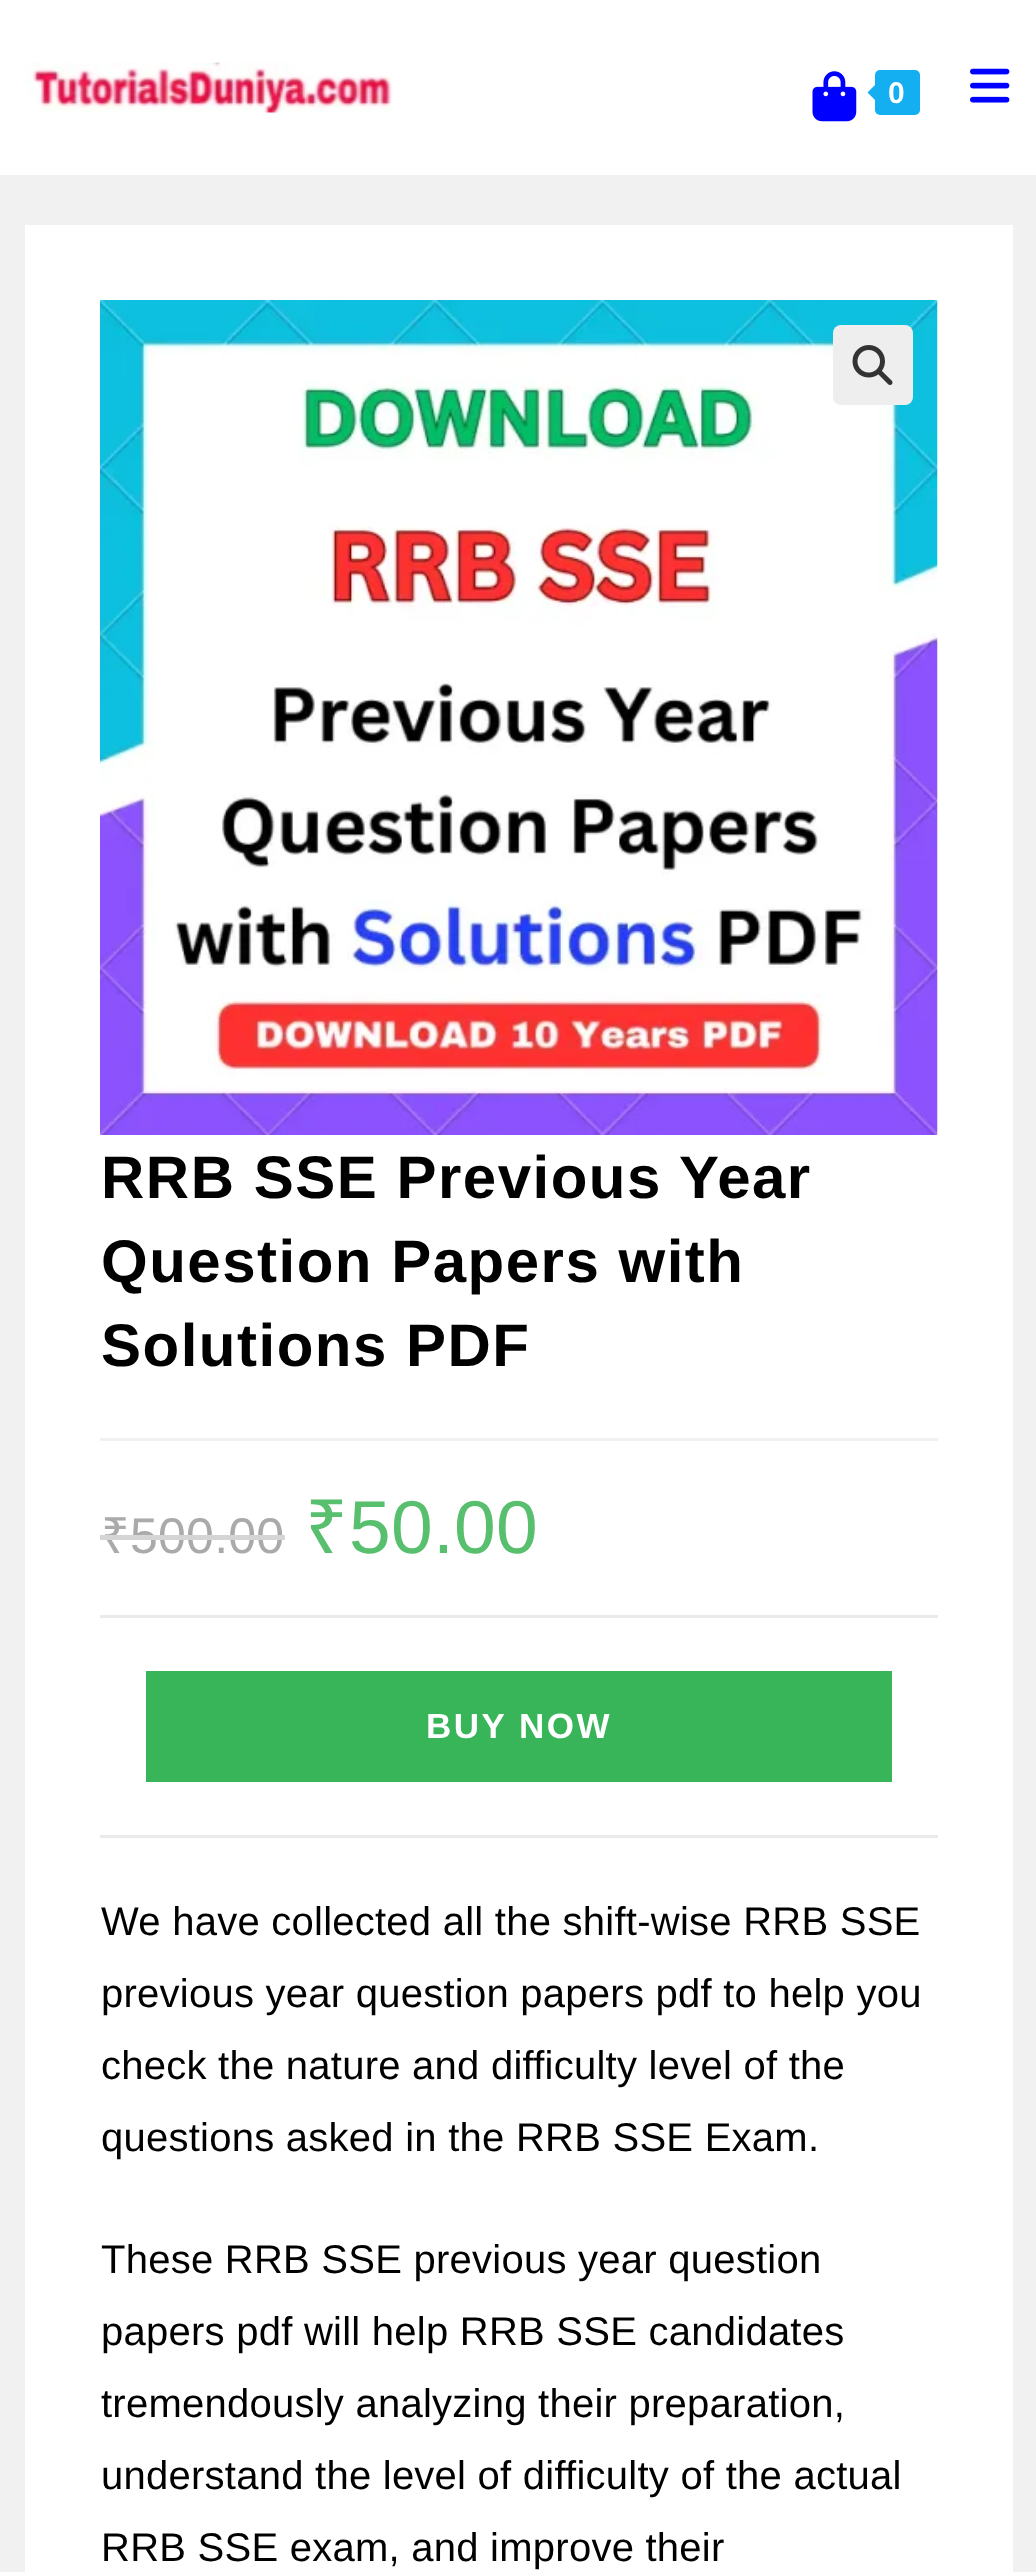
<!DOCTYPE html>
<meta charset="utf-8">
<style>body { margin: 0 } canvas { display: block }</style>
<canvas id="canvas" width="1036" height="2572"></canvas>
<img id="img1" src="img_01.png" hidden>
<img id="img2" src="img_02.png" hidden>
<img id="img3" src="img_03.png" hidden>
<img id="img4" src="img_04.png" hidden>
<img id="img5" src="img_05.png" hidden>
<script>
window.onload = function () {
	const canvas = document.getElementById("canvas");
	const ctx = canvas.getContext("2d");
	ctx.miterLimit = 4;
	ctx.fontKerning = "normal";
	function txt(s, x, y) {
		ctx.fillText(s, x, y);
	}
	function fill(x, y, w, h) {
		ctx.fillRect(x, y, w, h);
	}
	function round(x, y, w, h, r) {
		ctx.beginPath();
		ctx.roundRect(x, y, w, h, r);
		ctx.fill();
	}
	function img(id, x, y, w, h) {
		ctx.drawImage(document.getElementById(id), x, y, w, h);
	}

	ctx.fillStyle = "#F1F1F1";
	fill(0, 0, 1036, 2572);
	ctx.fillStyle = "#FFFFFF";
	fill(0, 0, 1036, 175);
	img("img1", 25, 62, 368, 51);
	img("img2", 812, 71, 45, 51);
	ctx.fillStyle = "#13AFF0";
	round(875, 70, 45, 45, 5);
	ctx.beginPath();
	ctx.moveTo(880, 80);
	ctx.lineTo(880, 105);
	ctx.lineTo(867.5, 92.5);
	ctx.closePath();
	ctx.fill();
	img("img3", 970, 68, 40, 35);
	ctx.fillStyle = "#FFFFFF";
	fill(25, 225, 988, 2347);
	img("img4", 100, 300, 838, 835);
	ctx.fillStyle = "#EEEEEE";
	round(833, 325, 80, 80, 8);
	img("img5", 852, 345, 41, 40);
	ctx.fillStyle = "#F1F1F1";
	fill(100, 1438, 838, 3);
	ctx.fillStyle = "#EAEAEA";
	fill(100, 1615, 838, 3);
	fill(100, 1835, 838, 3);
	ctx.fillStyle = "#38B559";
	fill(146, 1671, 746, 111);
	ctx.letterSpacing = "1.5px";
	ctx.font = "bold 30px Liberation Sans";
	ctx.fillStyle = "#FFFFFF";
	txt("0", 888, 103);
	ctx.font = "bold 60px Liberation Sans";
	ctx.fillStyle = "#000000";
	txt("RRB SSE Previous Year", 101, 1198);
	txt("Question Papers with", 101, 1282);
	txt("Solutions PDF", 101, 1366);
	ctx.letterSpacing = "0.25px";
	ctx.font = "50px Noto Sans";
	ctx.fillStyle = "#AAAAAA";
	txt("₹", 101, 1553);
	ctx.font = "50px Liberation Sans";
	txt("500.00", 130, 1553);
	ctx.fillStyle = "#D5D5D5";
	fill(100, 1535, 30, 5);
	fill(130, 1535, 155, 5);
	ctx.font = "75px Noto Sans";
	ctx.fillStyle = "#57BF6D";
	txt("₹", 305, 1553);
	ctx.font = "75px Liberation Sans";
	txt("50.00", 349, 1553);
	ctx.letterSpacing = "2.5px";
	ctx.font = "bold 35px Liberation Sans";
	ctx.fillStyle = "#FFFFFF";
	txt("BUY NOW", 426, 1738);
	ctx.letterSpacing = "0.25px";
	ctx.font = "40px Liberation Sans";
	ctx.fillStyle = "#000000";
	txt("We have collected all the shift-wise RRB SSE", 101, 1935);
	txt("previous year question papers pdf to help you", 101, 2007);
	txt("check the nature and difficulty level of the", 101, 2079);
	txt("questions asked in the RRB SSE Exam.", 101, 2151);
	txt("These RRB SSE previous year question", 101, 2273);
	txt("papers pdf will help RRB SSE candidates", 101, 2345);
	txt("tremendously analyzing their preparation,", 101, 2417);
	txt("understand the level of difficulty of the actual", 101, 2489);
	txt("RRB SSE exam, and improve their", 101, 2561);
};
</script>
